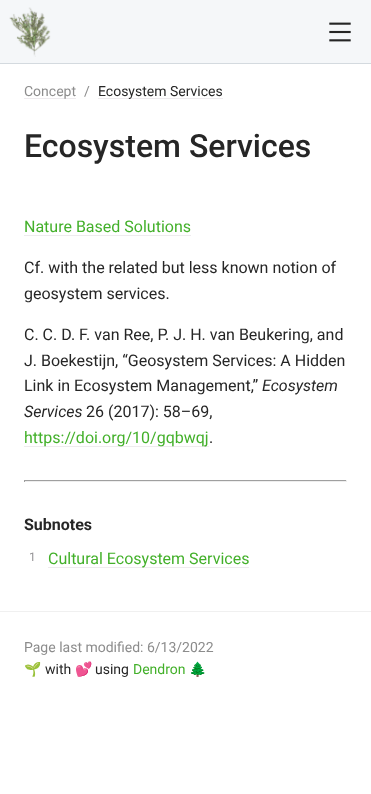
<!DOCTYPE html>
<meta charset="utf-8">
<style>body { margin: 0 } canvas { display: block }</style>
<canvas id="canvas" width="371" height="794"></canvas>
<img id="img1" src="img_01.png" hidden>
<img id="img2" src="img_02.png" hidden>
<script>
window.onload = function () {
	const canvas = document.getElementById("canvas");
	const ctx = canvas.getContext("2d");
	ctx.miterLimit = 4;
	ctx.fontKerning = "normal";
	function txt(s, x, y) {
		ctx.fillText(s, x, y);
	}
	function fill(x, y, w, h) {
		ctx.fillRect(x, y, w, h);
	}
	function img(id, x, y, w, h) {
		ctx.drawImage(document.getElementById(id), x, y, w, h);
	}

	ctx.fillStyle = "#FFFFFF";
	fill(0, 0, 371, 794);
	ctx.fillStyle = "#F5F7F9";
	fill(0, 0, 371, 63);
	ctx.fillStyle = "#D4DADF";
	fill(0, 63, 371, 1);
	img("img1", 9, 7, 42, 50);
	img("img2", 329, 22, 22, 20);
	ctx.fillStyle = "#EEEBEE";
	fill(24, 98, 52, 1);
	fill(98, 98, 125, 1);
	fill(24, 235, 167, 1);
	fill(24, 446, 185, 1);
	ctx.fillStyle = "#9F9F9F";
	fill(24, 480, 323, 1);
	ctx.fillStyle = "#EEEEEE";
	fill(346, 480, 1, 2);
	fill(24, 481, 323, 1);
	ctx.fillStyle = "#9F9F9F";
	fill(24, 480, 1, 2);
	ctx.fillStyle = "#EEEBEE";
	fill(48, 567, 201, 1);
	ctx.fillStyle = "#F0F0F0";
	fill(0, 611, 371, 1);
	ctx.font = "14px Roboto";
	ctx.fillStyle = "#8C8C8C";
	txt("Concept", 24, 96);
	txt("/", 84, 96);
	ctx.fillStyle = "#262626";
	txt("Ecosystem Services", 98, 96);
	ctx.font = "500 32px Roboto";
	txt("Ecosystem Services", 24, 157);
	ctx.font = "16px Roboto";
	ctx.fillStyle = "#43B02A";
	txt("Nature Based Solutions", 24, 232);
	ctx.fillStyle = "#262626";
	txt("Cf. with the related but less known notion of", 24, 273);
	txt("geosystem services.", 24, 299);
	txt("C. C. D. F. van Ree, P. J. H. van Beukering, and", 24, 340);
	txt("J. Boekestijn, “Geosystem Services: A Hidden", 24, 366);
	txt("Link in Ecosystem Management,”", 24, 391);
	ctx.font = "italic 16px Roboto";
	txt("Ecosystem", 262, 391);
	txt("Services", 24, 417);
	ctx.font = "16px Roboto";
	txt("26 (2017): 58–69,", 86, 417);
	ctx.fillStyle = "#43B02A";
	txt("https://doi.org/10/gqbwqj", 24, 443);
	ctx.fillStyle = "#262626";
	txt(".", 209, 443);
	ctx.font = "bold 16px Roboto";
	txt("Subnotes", 24, 530);
	ctx.font = "12px Roboto";
	ctx.fillStyle = "#959396";
	txt("1", 29, 561);
	ctx.font = "16px Roboto";
	ctx.fillStyle = "#43B02A";
	txt("Cultural Ecosystem Services", 48, 564);
	ctx.font = "14px Roboto";
	ctx.fillStyle = "#8C8C8C";
	txt("Page last modified: 6/13/2022", 24, 652);
	ctx.font = "14px Noto Color Emoji";
	ctx.fillStyle = "#262626";
	txt("🌱", 24, 674);
	ctx.font = "14px Roboto";
	txt("with", 45, 674);
	ctx.font = "14px Noto Color Emoji";
	txt("💕", 75, 674);
	ctx.font = "14px Roboto";
	txt("using", 95, 674);
	ctx.fillStyle = "#43B02A";
	txt("Dendron", 133, 674);
	ctx.font = "14px Noto Color Emoji";
	txt("🌲", 189, 674);
};
</script>
